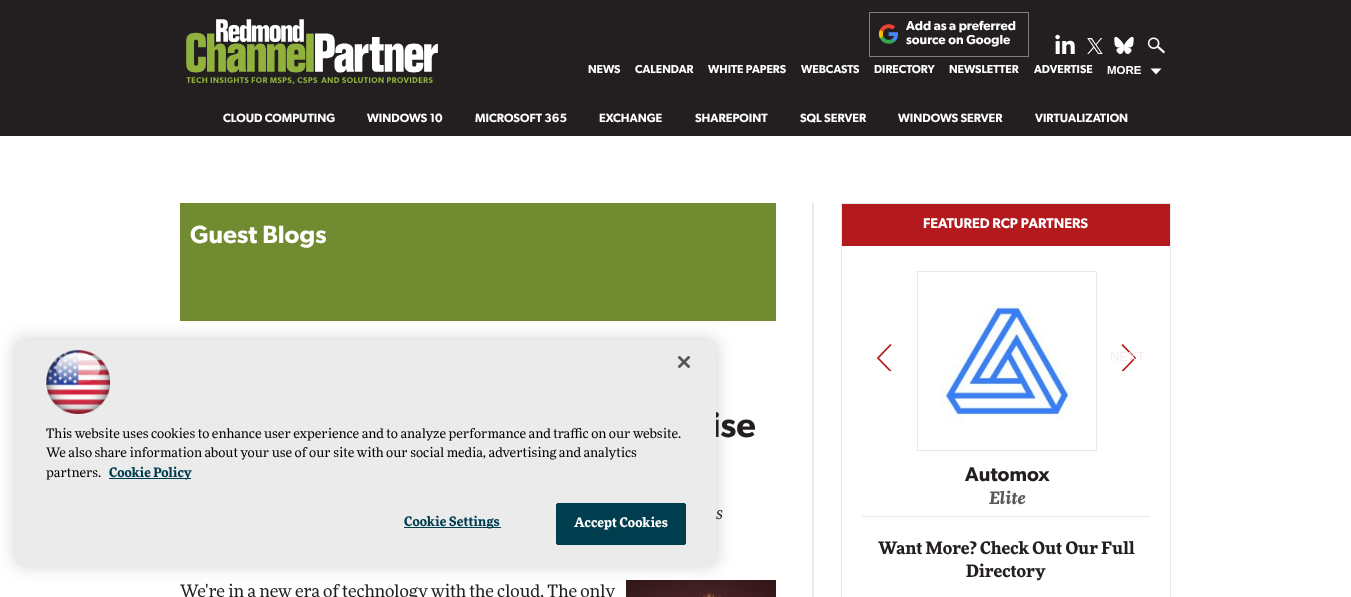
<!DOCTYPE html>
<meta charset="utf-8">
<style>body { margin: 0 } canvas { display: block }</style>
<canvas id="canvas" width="1351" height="597"></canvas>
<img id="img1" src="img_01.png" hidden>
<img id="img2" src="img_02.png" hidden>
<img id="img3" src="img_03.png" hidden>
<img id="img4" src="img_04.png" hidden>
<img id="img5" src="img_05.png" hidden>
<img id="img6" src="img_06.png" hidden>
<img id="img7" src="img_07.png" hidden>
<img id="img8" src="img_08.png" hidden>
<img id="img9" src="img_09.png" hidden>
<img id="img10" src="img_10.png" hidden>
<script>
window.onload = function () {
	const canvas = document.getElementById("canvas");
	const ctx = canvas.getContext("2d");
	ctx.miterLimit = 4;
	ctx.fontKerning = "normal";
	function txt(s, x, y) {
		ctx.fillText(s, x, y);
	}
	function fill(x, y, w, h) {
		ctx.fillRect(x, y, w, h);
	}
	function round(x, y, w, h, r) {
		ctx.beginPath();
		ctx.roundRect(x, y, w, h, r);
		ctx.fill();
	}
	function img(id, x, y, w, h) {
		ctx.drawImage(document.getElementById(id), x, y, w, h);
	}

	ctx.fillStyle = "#FFFFFF";
	fill(0, 0, 1351, 597);
	ctx.fillStyle = "#231F20";
	fill(0, 0, 1351, 136);
	img("img1", 186, 19, 252, 65);
	ctx.strokeStyle = "#7E7E7E";
	ctx.strokeRect(869.5, 12.5, 159, 44);
	img("img2", 878, 24, 20, 20);
	img("img3", 1055, 34, 20, 20);
	img("img4", 1087, 38, 16, 16);
	img("img5", 1114, 37, 20, 17);
	img("img6", 1147, 37, 18, 17);
	ctx.fillStyle = "#FFFFFF";
	ctx.beginPath();
	ctx.moveTo(1150.5, 68.5);
	ctx.lineTo(1156, 74.5);
	ctx.lineTo(1161.5, 68.5);
	ctx.fill();
	ctx.fillStyle = "#718B30";
	fill(180, 203, 596, 118);
	img("img7", 626, 580, 150, 17);
	ctx.fillStyle = "#E6E7E8";
	fill(812, 203, 2, 394);
	ctx.strokeStyle = "#E6E7E8";
	ctx.strokeRect(841.5, 203.5, 329, 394);
	ctx.fillStyle = "#B4191E";
	fill(842, 204, 328, 42);
	ctx.save();
	ctx.beginPath();
	ctx.rect(877, 344, 15, 27);
	ctx.clip();
	ctx.beginPath();
	ctx.moveTo(891, 371.5);
	ctx.lineTo(878, 358);
	ctx.lineTo(891, 344.5);
	ctx.strokeStyle = "#B4191E";
	ctx.lineWidth = 1.7;
	ctx.stroke();
	ctx.restore();
	ctx.save();
	ctx.beginPath();
	ctx.rect(1121, 344, 15, 27);
	ctx.clip();
	ctx.beginPath();
	ctx.moveTo(1122, 344.5);
	ctx.lineTo(1135, 358);
	ctx.lineTo(1122, 371.5);
	ctx.strokeStyle = "#B4191E";
	ctx.lineWidth = 1.7;
	ctx.stroke();
	ctx.restore();
	ctx.strokeRect(917.5, 271.5, 179, 179);
	img("img8", 940, 303, 132, 121);
	ctx.fillStyle = "#E6E7E8";
	fill(862, 516, 288, 1);
	ctx.fillStyle = "rgba(0, 0, 0, 0.2)";
	ctx.filter = "blur(9px)";
	ctx.beginPath();
	ctx.roundRect(16, 340, 700, 225, 2.5);
	ctx.fill();
	ctx.filter = "none";
	ctx.font = "600 13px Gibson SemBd";
	ctx.fillStyle = "#FFFFFF";
	txt("Add as a preferred", 906, 30);
	txt("source on Google", 906, 44);
	ctx.font = "600 11.5px Gibson SemBd";
	txt("NEWS", 588, 73);
	txt("CALENDAR", 635, 73);
	txt("WHITE PAPERS", 708, 73);
	txt("WEBCASTS", 801, 73);
	txt("DIRECTORY", 874, 73);
	txt("NEWSLETTER", 949, 73);
	txt("ADVERTISE", 1034, 73);
	ctx.font = "bold 11.5px Liberation Sans";
	txt("MORE", 1107, 74);
	ctx.font = "600 12px Gibson SemBd";
	txt("CLOUD COMPUTING", 223, 122);
	txt("WINDOWS 10", 367, 122);
	txt("MICROSOFT 365", 475, 122);
	txt("EXCHANGE", 599, 122);
	txt("SHAREPOINT", 695, 122);
	txt("SQL SERVER", 800, 122);
	txt("WINDOWS SERVER", 898, 122);
	txt("VIRTUALIZATION", 1035, 122);
	ctx.font = "600 25px Gibson SemBd";
	txt("Guest Blogs", 190, 243);
	ctx.font = "600 35px Gibson SemBd";
	ctx.fillStyle = "#231F20";
	txt("ise", 711, 437);
	ctx.font = "italic 17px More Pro";
	txt("s", 716, 519);
	ctx.font = "17px More Pro";
	txt("We're in a new era of technology with the cloud. The only", 180, 597);
	ctx.font = "600 14px Gibson SemBd";
	ctx.fillStyle = "#FFFFFF";
	txt("FEATURED RCP PARTNERS", 923, 228);
	ctx.font = "13px Liberation Sans";
	ctx.fillStyle = "#F8EAEA";
	txt("NEXT", 1110, 361);
	ctx.font = "600 20px Gibson SemBd";
	ctx.fillStyle = "#231F20";
	txt("Automox", 965, 481);
	ctx.font = "italic bold 17px More Pro";
	ctx.fillStyle = "#58595B";
	txt("Elite", 989, 504);
	ctx.font = "bold 17px More Pro";
	ctx.fillStyle = "#231F20";
	txt("Want More? Check Out Our Full", 878, 554);
	txt("Directory", 966, 577);
	ctx.fillStyle = "#EBEBEB";
	round(16, 340, 700, 225, 2.5);
	img("img9", 678, 356, 12, 12);
	img("img10", 46, 349, 64, 65);
	ctx.font = "13px More Pro";
	ctx.fillStyle = "#000000";
	txt("This website uses cookies to enhance user experience and to analyze performance and traffic on our website.", 46, 438);
	txt("We also share information about your use of our site with our social media, advertising and analytics", 46, 457);
	txt("partners.", 46, 477);
	ctx.fillStyle = "#003D4F";
	fill(109, 478, 82, 1);
	ctx.font = "bold 13px More Pro";
	txt("Cookie Policy", 109, 477);
	fill(404, 527, 97, 1);
	ctx.letterSpacing = "0.1px";
	txt("Cookie Settings", 404, 526);
	ctx.beginPath();
	ctx.roundRect(556.5, 503.5, 129, 41, 1.5);
	ctx.fill();
	ctx.strokeStyle = "#003D4F";
	ctx.stroke();
	ctx.fillStyle = "#FFFFFF";
	txt("Accept Cookies", 574, 527);
};
</script>
